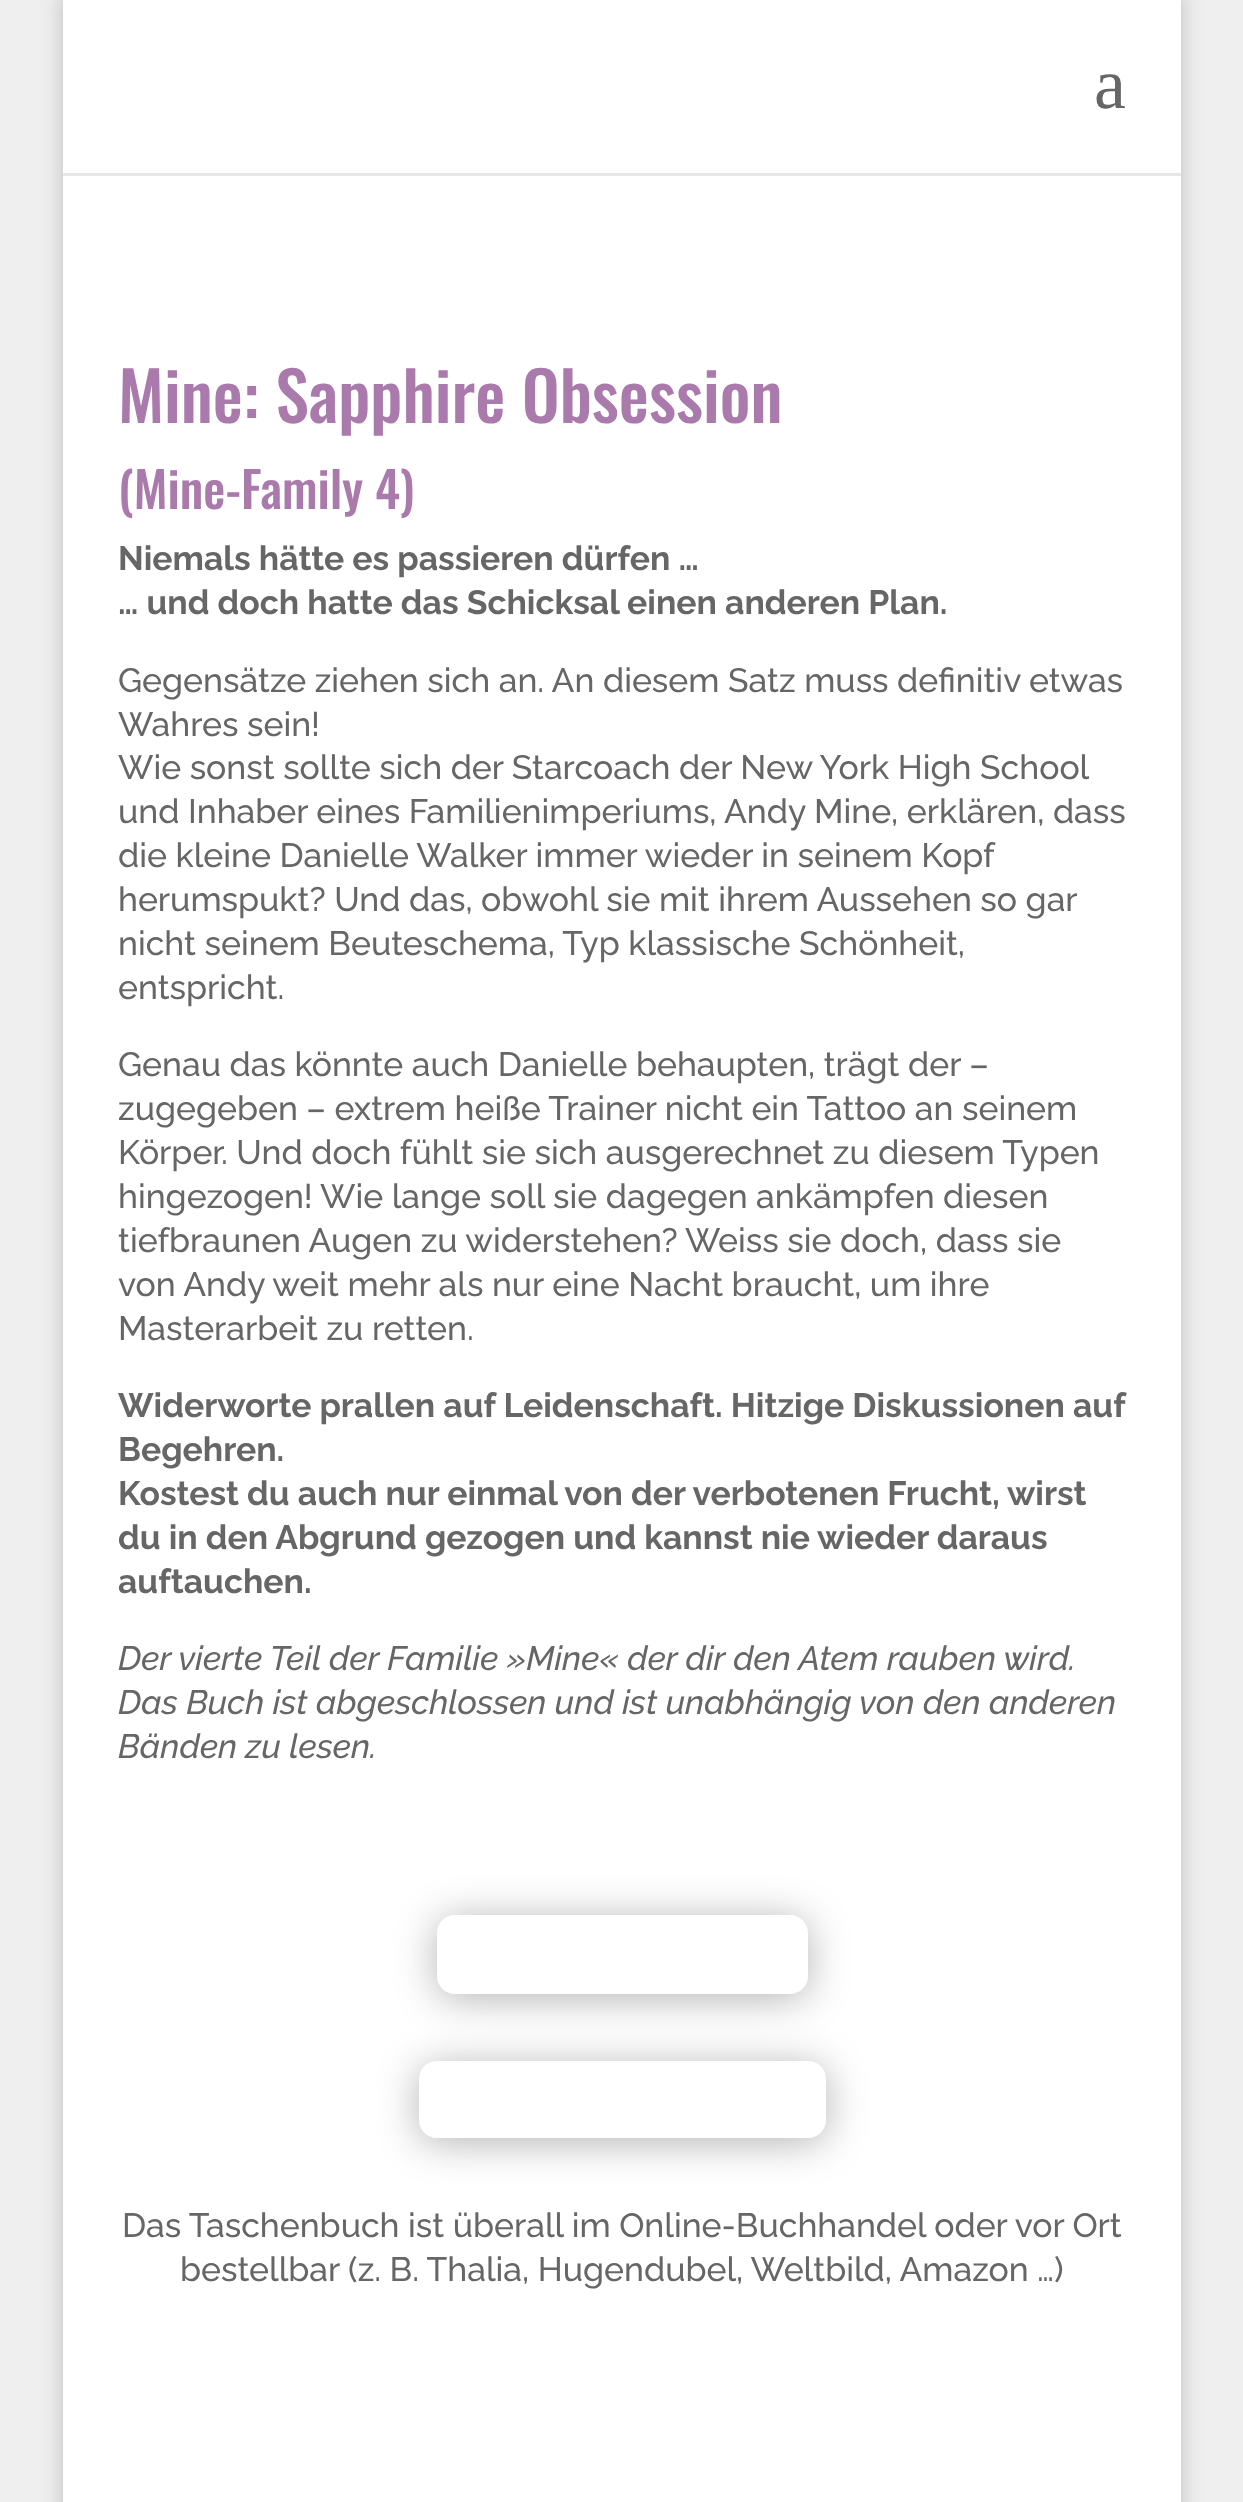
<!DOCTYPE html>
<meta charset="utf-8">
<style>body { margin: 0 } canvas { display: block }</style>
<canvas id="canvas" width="1243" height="2502"></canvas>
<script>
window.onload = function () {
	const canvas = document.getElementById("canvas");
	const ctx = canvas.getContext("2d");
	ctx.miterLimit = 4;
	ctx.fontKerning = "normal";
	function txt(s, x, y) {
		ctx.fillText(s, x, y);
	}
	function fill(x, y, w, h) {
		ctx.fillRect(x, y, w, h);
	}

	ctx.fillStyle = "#EFEFEF";
	fill(0, 0, 1243, 2502);
	ctx.fillStyle = "rgba(0, 0, 0, 0.2)";
	ctx.filter = "blur(11px)";
	ctx.beginPath();
	ctx.rect(63, -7, 1118, 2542);
	ctx.fill();
	ctx.filter = "none";
	ctx.fillStyle = "#E6E6E6";
	fill(63, 173, 1118, 3);
	ctx.fillStyle = "#FFFFFF";
	fill(63, 0, 1118, 173);
	fill(63, 176, 1118, 2326);
	ctx.save();
	ctx.beginPath();
	ctx.moveTo(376, 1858);
	ctx.lineTo(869, 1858);
	ctx.lineTo(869, 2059);
	ctx.lineTo(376, 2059);
	ctx.closePath();
	ctx.moveTo(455, 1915);
	ctx.lineTo(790, 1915);
	ctx.bezierCurveTo(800, 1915, 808, 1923, 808, 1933);
	ctx.lineTo(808, 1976);
	ctx.bezierCurveTo(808, 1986, 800, 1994, 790, 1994);
	ctx.lineTo(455, 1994);
	ctx.bezierCurveTo(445, 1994, 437, 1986, 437, 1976);
	ctx.lineTo(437, 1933);
	ctx.bezierCurveTo(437, 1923, 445, 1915, 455, 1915);
	ctx.closePath();
	ctx.clip("evenodd");
	ctx.fillStyle = "rgba(0, 0, 0, 0.3)";
	ctx.filter = "blur(20px)";
	ctx.beginPath();
	ctx.roundRect(437, 1919, 371, 79, 18);
	ctx.fill();
	ctx.filter = "none";
	ctx.restore();
	ctx.save();
	ctx.beginPath();
	ctx.moveTo(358, 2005);
	ctx.lineTo(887, 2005);
	ctx.lineTo(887, 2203);
	ctx.lineTo(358, 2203);
	ctx.closePath();
	ctx.moveTo(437, 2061);
	ctx.lineTo(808, 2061);
	ctx.bezierCurveTo(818, 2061, 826, 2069, 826, 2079);
	ctx.lineTo(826, 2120);
	ctx.bezierCurveTo(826, 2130, 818, 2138, 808, 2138);
	ctx.lineTo(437, 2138);
	ctx.bezierCurveTo(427, 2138, 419, 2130, 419, 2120);
	ctx.lineTo(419, 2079);
	ctx.bezierCurveTo(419, 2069, 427, 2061, 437, 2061);
	ctx.closePath();
	ctx.clip("evenodd");
	ctx.fillStyle = "rgba(0, 0, 0, 0.3)";
	ctx.filter = "blur(20px)";
	ctx.beginPath();
	ctx.roundRect(419, 2066, 407, 76, 18);
	ctx.fill();
	ctx.filter = "none";
	ctx.restore();
	ctx.font = "72px Liberation Serif";
	ctx.fillStyle = "#666666";
	txt("a", 1094, 108);
	ctx.font = "500 67.5px Oswald";
	ctx.fillStyle = "#A97AAB";
	txt("Mine: Sapphire Obsession", 118, 423);
	ctx.font = "500 49.5px Oswald";
	txt("(Mine-Family 4)", 118, 509);
	ctx.font = "bold 33.75px Raleway";
	ctx.fillStyle = "#666666";
	txt("Niemals hätte es passieren dürfen …", 118, 570);
	txt("… und doch hatte das Schicksal einen anderen Plan.", 118, 614);
	ctx.font = "500 33.75px Raleway";
	txt("Gegensätze ziehen sich an. An diesem Satz muss definitiv etwas", 118, 692);
	txt("Wahres sein!", 118, 736);
	txt("Wie sonst sollte sich der Starcoach der New York High School", 118, 779);
	txt("und Inhaber eines Familienimperiums, Andy Mine, erklären, dass", 118, 823);
	txt("die kleine Danielle Walker immer wieder in seinem Kopf", 118, 867);
	txt("herumspukt? Und das, obwohl sie mit ihrem Aussehen so gar", 118, 911);
	txt("nicht seinem Beuteschema, Typ klassische Schönheit,", 118, 955);
	txt("entspricht.", 118, 999);
	txt("Genau das könnte auch Danielle behaupten, trägt der –", 118, 1076);
	txt("zugegeben – extrem heiße Trainer nicht ein Tattoo an seinem", 118, 1120);
	txt("Körper. Und doch fühlt sie sich ausgerechnet zu diesem Typen", 118, 1164);
	txt("hingezogen! Wie lange soll sie dagegen ankämpfen diesen", 118, 1208);
	txt("tiefbraunen Augen zu widerstehen? Weiss sie doch, dass sie", 118, 1252);
	txt("von Andy weit mehr als nur eine Nacht braucht, um ihre", 118, 1296);
	txt("Masterarbeit zu retten.", 118, 1340);
	ctx.font = "bold 33.75px Raleway";
	txt("Widerworte prallen auf Leidenschaft. Hitzige Diskussionen auf", 118, 1417);
	txt("Begehren.", 118, 1461);
	txt("Kostest du auch nur einmal von der verbotenen Frucht, wirst", 118, 1505);
	txt("du in den Abgrund gezogen und kannst nie wieder daraus", 118, 1549);
	txt("auftauchen.", 118, 1593);
	ctx.font = "italic 500 33.75px Raleway";
	txt("Der vierte Teil der Familie »Mine« der dir den Atem rauben wird.", 118, 1670);
	txt("Das Buch ist abgeschlossen und ist unabhängig von den anderen", 118, 1714);
	txt("Bänden zu lesen.", 118, 1758);
	ctx.font = "500 33.75px Raleway";
	txt("Das Taschenbuch ist überall im Online-Buchhandel oder vor Ort", 122, 2237);
	txt("bestellbar (z. B. Thalia, Hugendubel, Weltbild, Amazon …)", 180, 2281);
};
</script>
